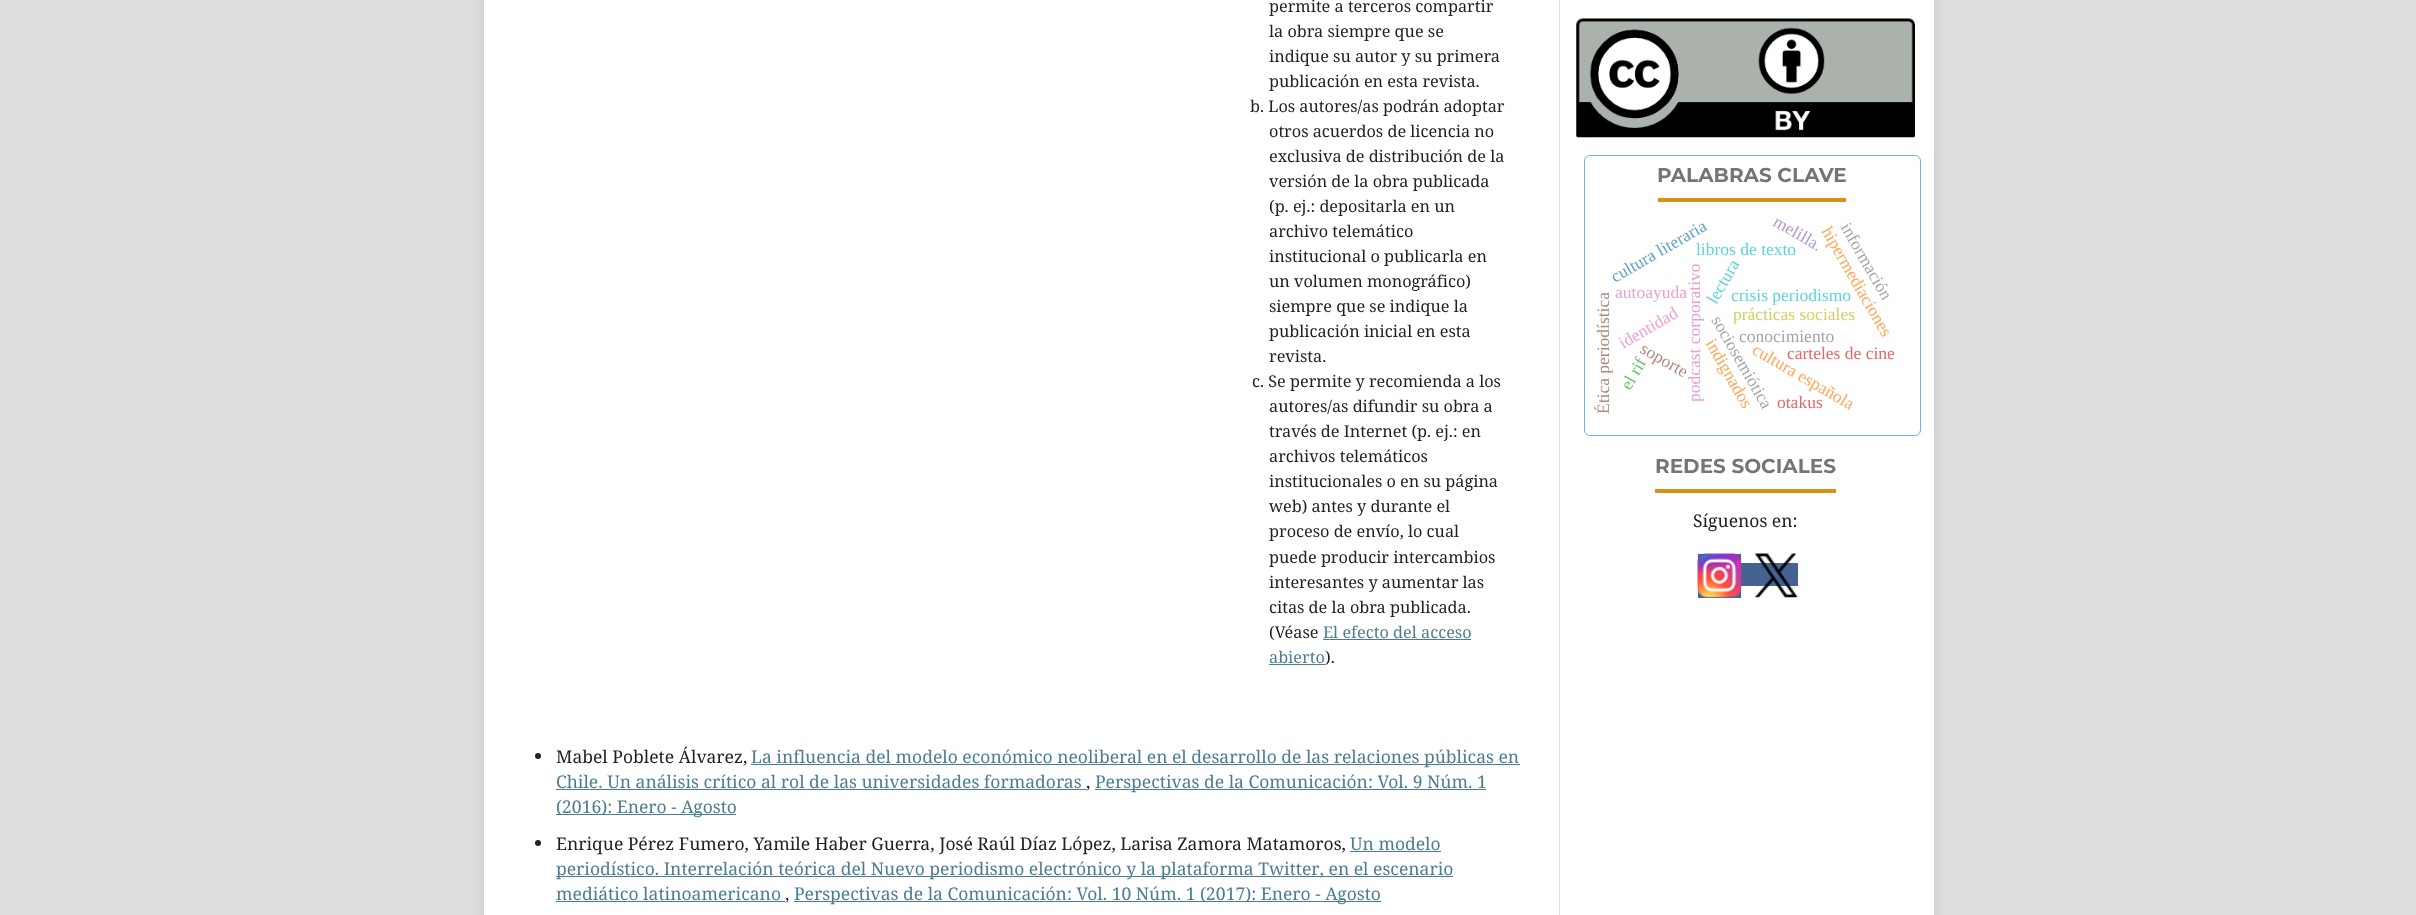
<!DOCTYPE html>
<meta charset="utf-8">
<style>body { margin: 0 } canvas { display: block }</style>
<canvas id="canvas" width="2416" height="915"></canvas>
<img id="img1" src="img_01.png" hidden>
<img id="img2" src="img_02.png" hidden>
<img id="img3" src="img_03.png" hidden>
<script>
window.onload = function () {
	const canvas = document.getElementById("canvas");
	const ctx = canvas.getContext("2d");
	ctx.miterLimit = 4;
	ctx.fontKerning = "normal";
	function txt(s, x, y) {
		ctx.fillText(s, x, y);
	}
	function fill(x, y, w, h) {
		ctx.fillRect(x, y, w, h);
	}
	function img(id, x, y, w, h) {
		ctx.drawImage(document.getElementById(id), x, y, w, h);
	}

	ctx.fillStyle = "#DDDDDD";
	fill(0, 0, 2416, 915);
	ctx.fillStyle = "rgba(0, 0, 0, 0.1)";
	ctx.filter = "blur(6px)";
	ctx.beginPath();
	ctx.rect(484, -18, 1450, 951);
	ctx.fill();
	ctx.filter = "none";
	ctx.fillStyle = "#FFFFFF";
	fill(484, 0, 1450, 915);
	ctx.fillStyle = "#4B7D92";
	fill(1323, 639, 148, 1);
	fill(1269, 664, 56, 1);
	ctx.fillStyle = "#212121";
	ctx.beginPath();
	ctx.arc(538, 756, 3, 0, Math.PI * 2);
	ctx.fill();
	ctx.fillStyle = "#4B7D92";
	fill(751, 764, 769, 1);
	fill(556, 789, 530, 1);
	fill(1095, 789, 391, 1);
	fill(556, 814, 180, 1);
	ctx.fillStyle = "#212121";
	ctx.beginPath();
	ctx.arc(538, 843, 3, 0, Math.PI * 2);
	ctx.fill();
	ctx.fillStyle = "#4B7D92";
	fill(1350, 851, 91, 1);
	fill(556, 876, 897, 1);
	fill(556, 901, 229, 1);
	fill(794, 901, 587, 1);
	ctx.fillStyle = "#DDDDDD";
	fill(1559, 0, 1, 915);
	img("img1", 1576, 18, 339, 120);
	ctx.beginPath();
	ctx.roundRect(1584.5, 155.5, 336, 280, 5.5);
	ctx.strokeStyle = "#70ADF6";
	ctx.stroke();
	ctx.fillStyle = "#D79212";
	fill(1658, 198, 188, 4);
	fill(1655, 489, 181, 4);
	ctx.fillStyle = "#446391";
	fill(1698, 554, 43, 44);
	fill(1741, 563, 57, 23);
	img("img2", 1697, 553, 45, 45);
	img("img3", 1755, 553, 43, 45);
	ctx.font = "16.25px Noto Serif";
	ctx.fillStyle = "#212121";
	txt("permite a terceros compartir", 1269, 12);
	txt("la obra siempre que se", 1269, 37);
	txt("indique su autor y su primera", 1269, 62);
	txt("publicación en esta revista.", 1269, 87);
	txt("b. Los autores/as podrán adoptar", 1250, 112);
	txt("otros acuerdos de licencia no", 1269, 137);
	txt("exclusiva de distribución de la", 1269, 162);
	txt("versión de la obra publicada", 1269, 187);
	txt("(p. ej.: depositarla en un", 1269, 212);
	txt("archivo telemático", 1269, 237);
	txt("institucional o publicarla en", 1269, 262);
	txt("un volumen monográfico)", 1269, 287);
	txt("siempre que se indique la", 1269, 312);
	txt("publicación inicial en esta", 1269, 337);
	txt("revista.", 1269, 362);
	txt("c. Se permite y recomienda a los", 1252, 387);
	txt("autores/as difundir su obra a", 1269, 412);
	txt("través de Internet (p. ej.: en", 1269, 437);
	txt("archivos telemáticos", 1269, 462);
	txt("institucionales o en su página", 1269, 487);
	txt("web) antes y durante el", 1269, 512);
	txt("proceso de envío, lo cual", 1269, 537);
	txt("puede producir intercambios", 1269, 563);
	txt("interesantes y aumentar las", 1269, 588);
	txt("citas de la obra publicada.", 1269, 613);
	txt("(Véase", 1269, 638);
	ctx.fillStyle = "#4B7D92";
	txt("El efecto del acceso", 1323, 638);
	txt("abierto", 1269, 663);
	ctx.fillStyle = "#212121";
	txt(").", 1325, 663);
	ctx.font = "17.5px Noto Serif";
	txt("Mabel Poblete Álvarez,", 556, 763);
	ctx.fillStyle = "#4B7D92";
	txt("La influencia del modelo económico neoliberal en el desarrollo de las relaciones públicas en", 751, 763);
	txt("Chile. Un análisis crítico al rol de las universidades formadoras", 556, 788);
	ctx.fillStyle = "#212121";
	txt(",", 1086, 788);
	ctx.fillStyle = "#4B7D92";
	txt("Perspectivas de la Comunicación: Vol. 9 Núm. 1", 1095, 788);
	txt("(2016): Enero - Agosto", 556, 813);
	ctx.fillStyle = "#212121";
	txt("Enrique Pérez Fumero, Yamile Haber Guerra, José Raúl Díaz López, Larisa Zamora Matamoros,", 556, 850);
	ctx.fillStyle = "#4B7D92";
	txt("Un modelo", 1350, 850);
	txt("periodístico. Interrelación teórica del Nuevo periodismo electrónico y la plataforma Twitter, en el escenario", 556, 875);
	txt("mediático latinoamericano", 556, 900);
	ctx.fillStyle = "#212121";
	txt(",", 785, 900);
	ctx.fillStyle = "#4B7D92";
	txt("Perspectivas de la Comunicación: Vol. 10 Núm. 1 (2017): Enero - Agosto", 794, 900);
	ctx.font = "bold 20px Montserrat";
	ctx.fillStyle = "#757575";
	txt("PALABRAS CLAVE", 1657, 182);
	ctx.font = "17.5px Liberation Serif";
	ctx.fillStyle = "#AF8981";
	ctx.save();
	ctx.translate(1609, 414);
	ctx.rotate(-90 * Math.PI / 180);
	ctx.fillText("Ética periodística", 0, 0);
	ctx.restore();
	ctx.fillStyle = "#EBA0D4";
	txt("autoayuda", 1615, 298);
	ctx.save();
	ctx.translate(1700, 402);
	ctx.rotate(-90 * Math.PI / 180);
	ctx.fillText("podcast corporativo", 0, 0);
	ctx.restore();
	ctx.fillStyle = "#5DD2DD";
	txt("crisis periodismo", 1731, 301);
	ctx.save();
	ctx.translate(1716, 305);
	ctx.rotate(-60 * Math.PI / 180);
	ctx.fillText("lectura", 0, 0);
	ctx.restore();
	ctx.fillStyle = "#62A0CB";
	ctx.save();
	ctx.translate(1615, 283);
	ctx.rotate(-30 * Math.PI / 180);
	ctx.fillText("cultura literaria", 0, 0);
	ctx.restore();
	ctx.fillStyle = "#5DD2DD";
	txt("libros de texto", 1696, 255);
	ctx.fillStyle = "#B495D1";
	ctx.save();
	ctx.translate(1772, 225);
	ctx.rotate(30 * Math.PI / 180);
	ctx.fillText("melilla.", 0, 0);
	ctx.restore();
	ctx.fillStyle = "#FFA556";
	ctx.save();
	ctx.translate(1821, 231);
	ctx.rotate(60 * Math.PI / 180);
	ctx.fillText("hipermediaciones", 0, 0);
	ctx.restore();
	ctx.fillStyle = "#A5A5A5";
	ctx.save();
	ctx.translate(1840, 227);
	ctx.rotate(60 * Math.PI / 180);
	ctx.fillText("información", 0, 0);
	ctx.restore();
	ctx.fillStyle = "#EBA0D4";
	ctx.save();
	ctx.translate(1623, 349);
	ctx.rotate(-30 * Math.PI / 180);
	ctx.fillText("identidad", 0, 0);
	ctx.restore();
	ctx.fillStyle = "#A5A5A5";
	ctx.save();
	ctx.translate(1711, 320);
	ctx.rotate(60 * Math.PI / 180);
	ctx.fillText("sociosemiótica", 0, 0);
	ctx.restore();
	ctx.fillStyle = "#D0D164";
	txt("prácticas sociales", 1733, 320);
	ctx.fillStyle = "#A5A5A5";
	txt("conocimiento", 1739, 342);
	ctx.fillStyle = "#AF8981";
	ctx.save();
	ctx.translate(1639, 352);
	ctx.rotate(30 * Math.PI / 180);
	ctx.fillText("soporte", 0, 0);
	ctx.restore();
	ctx.fillStyle = "#FFA556";
	ctx.save();
	ctx.translate(1705, 343);
	ctx.rotate(60 * Math.PI / 180);
	ctx.fillText("indignados", 0, 0);
	ctx.restore();
	ctx.fillStyle = "#6BBD6B";
	ctx.save();
	ctx.translate(1630, 391);
	ctx.rotate(-60 * Math.PI / 180);
	ctx.fillText("el rif", 0, 0);
	ctx.restore();
	ctx.fillStyle = "#FFA556";
	ctx.save();
	ctx.translate(1751, 353);
	ctx.rotate(30 * Math.PI / 180);
	ctx.fillText("cultura española", 0, 0);
	ctx.restore();
	ctx.fillStyle = "#E26869";
	txt("carteles de cine", 1787, 359);
	txt("otakus", 1777, 408);
	ctx.font = "bold 20px Montserrat";
	ctx.fillStyle = "#757575";
	txt("REDES SOCIALES", 1655, 473);
	ctx.font = "17.5px Noto Serif";
	ctx.fillStyle = "#212121";
	txt("Síguenos en:", 1693, 527);
};
</script>
